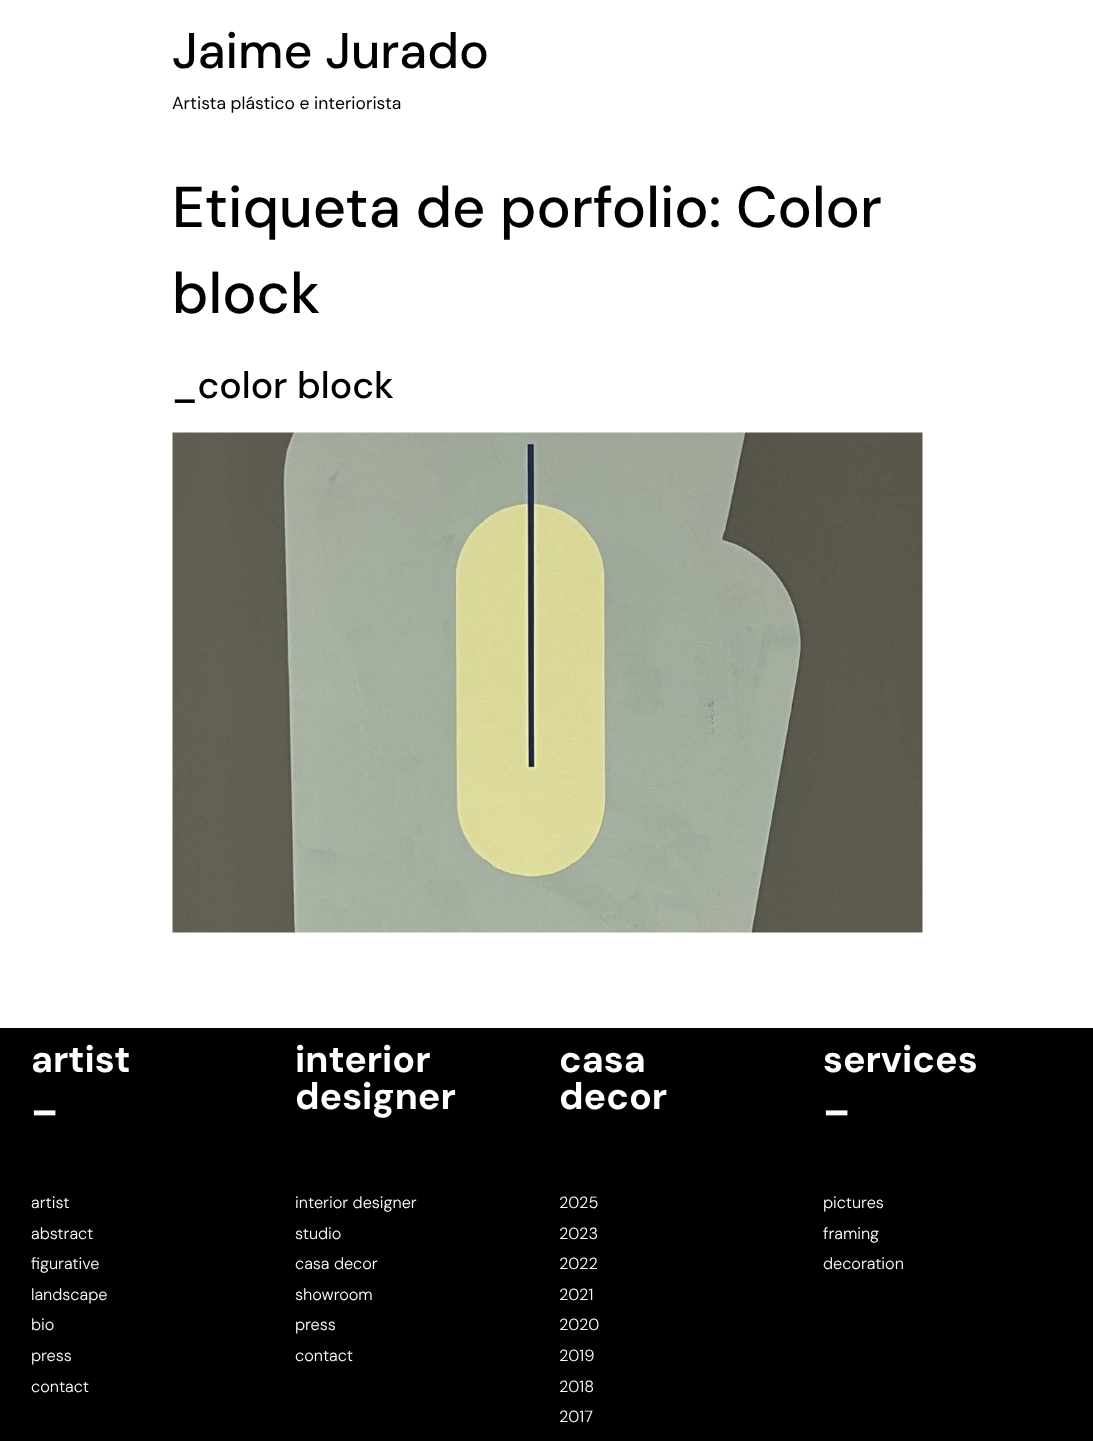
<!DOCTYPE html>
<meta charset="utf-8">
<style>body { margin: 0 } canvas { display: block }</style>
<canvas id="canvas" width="1093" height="1441"></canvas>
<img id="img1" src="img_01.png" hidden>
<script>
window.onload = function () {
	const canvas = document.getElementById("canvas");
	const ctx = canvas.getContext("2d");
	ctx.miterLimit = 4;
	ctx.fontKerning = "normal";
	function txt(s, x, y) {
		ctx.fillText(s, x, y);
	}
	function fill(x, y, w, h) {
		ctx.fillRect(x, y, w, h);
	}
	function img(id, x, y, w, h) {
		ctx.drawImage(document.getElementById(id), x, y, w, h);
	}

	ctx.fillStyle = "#FFFFFF";
	fill(0, 0, 1093, 1441);
	img("img1", 172, 432, 751, 501);
	ctx.fillStyle = "#000000";
	fill(0, 1028, 1093, 413);
	ctx.font = "500 50px DM Sans";
	txt("Jaime Jurado", 172, 68);
	ctx.font = "17.5px DM Sans";
	txt("Artista plástico e interiorista", 172, 109);
	ctx.font = "500 57.5px DM Sans";
	txt("Etiqueta de porfolio: Color", 172, 227);
	txt("block", 172, 313);
	ctx.font = "500 37.5px DM Sans";
	txt("_color block", 172, 398);
	ctx.font = "bold 37.5px DM Sans";
	ctx.fillStyle = "#FFFFFF";
	txt("artist", 31, 1072);
	txt("_", 31, 1109);
	ctx.font = "300 16.25px DM Sans";
	txt("artist", 31, 1208);
	txt("abstract", 31, 1239);
	txt("figurative", 31, 1269);
	txt("landscape", 31, 1300);
	txt("bio", 31, 1330);
	txt("press", 31, 1361);
	txt("contact", 31, 1392);
	ctx.font = "bold 37.5px DM Sans";
	txt("interior", 295, 1072);
	txt("designer", 295, 1109);
	ctx.font = "300 16.25px DM Sans";
	txt("interior designer", 295, 1208);
	txt("studio", 295, 1239);
	txt("casa decor", 295, 1269);
	txt("showroom", 295, 1300);
	txt("press", 295, 1330);
	txt("contact", 295, 1361);
	ctx.font = "bold 37.5px DM Sans";
	txt("casa", 559, 1072);
	txt("decor", 559, 1109);
	ctx.font = "300 16.25px DM Sans";
	txt("2025", 559, 1208);
	txt("2023", 559, 1239);
	txt("2022", 559, 1269);
	txt("2021", 559, 1300);
	txt("2020", 559, 1330);
	txt("2019", 559, 1361);
	txt("2018", 559, 1392);
	txt("2017", 559, 1422);
	ctx.font = "bold 37.5px DM Sans";
	txt("services", 823, 1072);
	txt("_", 823, 1109);
	ctx.font = "300 16.25px DM Sans";
	txt("pictures", 823, 1208);
	txt("framing", 823, 1239);
	txt("decoration", 823, 1269);
};
</script>
